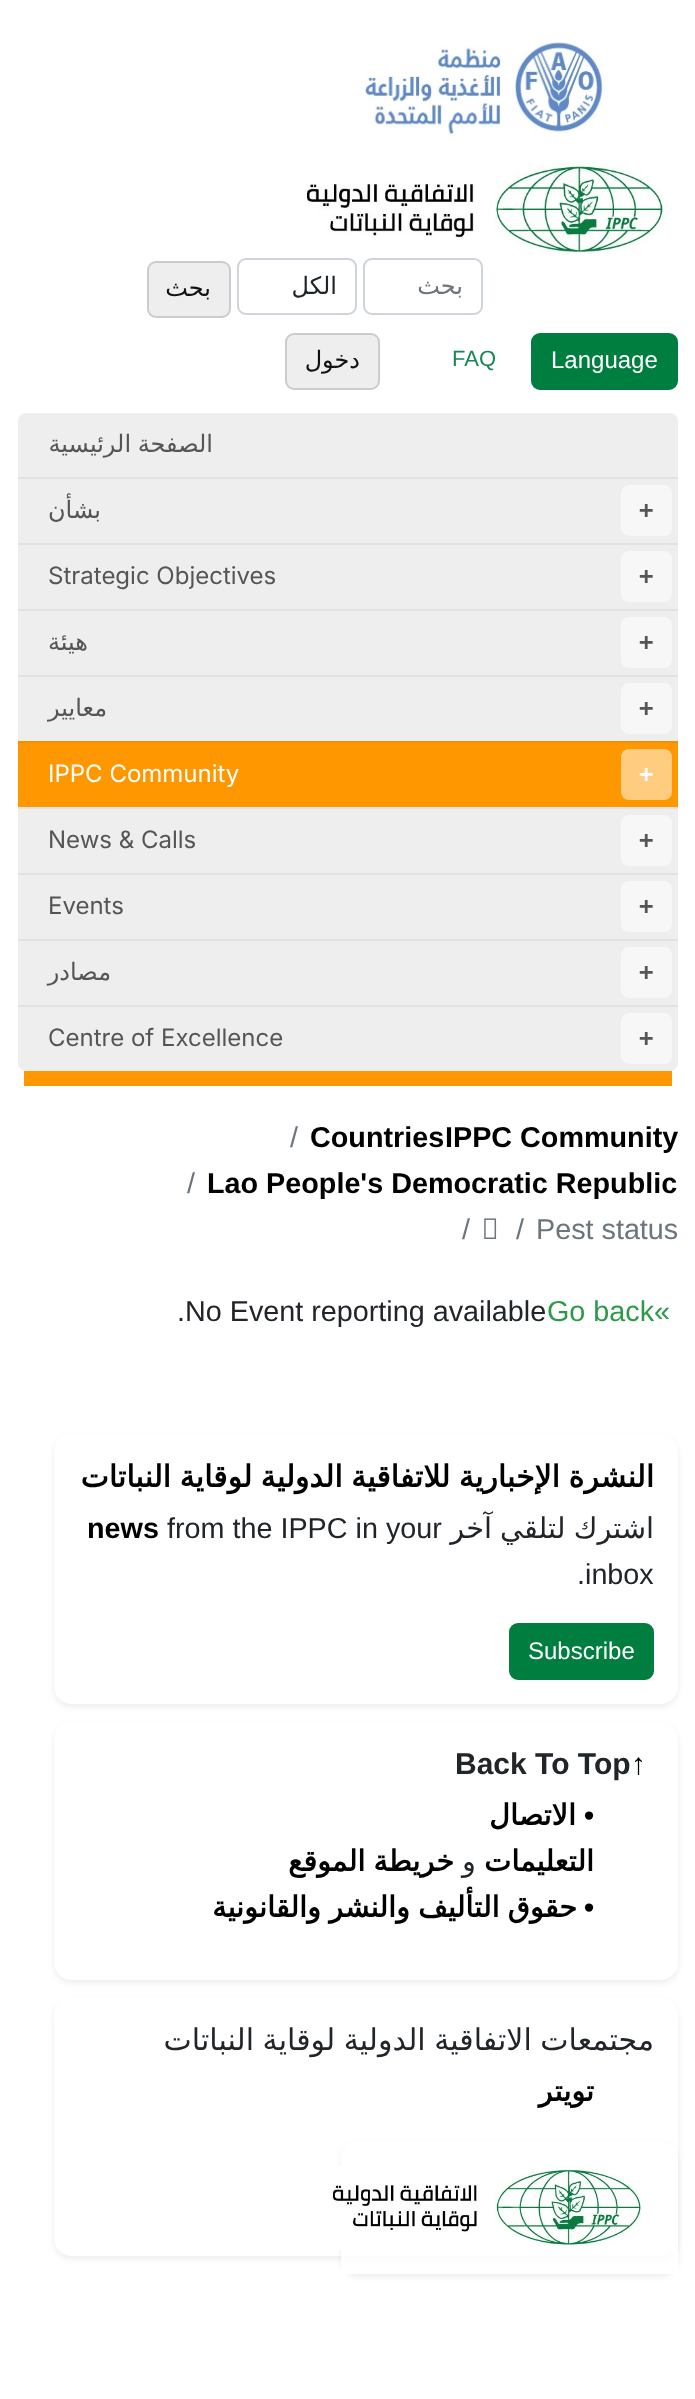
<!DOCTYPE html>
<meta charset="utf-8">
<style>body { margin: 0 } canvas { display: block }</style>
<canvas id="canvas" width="695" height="2399"></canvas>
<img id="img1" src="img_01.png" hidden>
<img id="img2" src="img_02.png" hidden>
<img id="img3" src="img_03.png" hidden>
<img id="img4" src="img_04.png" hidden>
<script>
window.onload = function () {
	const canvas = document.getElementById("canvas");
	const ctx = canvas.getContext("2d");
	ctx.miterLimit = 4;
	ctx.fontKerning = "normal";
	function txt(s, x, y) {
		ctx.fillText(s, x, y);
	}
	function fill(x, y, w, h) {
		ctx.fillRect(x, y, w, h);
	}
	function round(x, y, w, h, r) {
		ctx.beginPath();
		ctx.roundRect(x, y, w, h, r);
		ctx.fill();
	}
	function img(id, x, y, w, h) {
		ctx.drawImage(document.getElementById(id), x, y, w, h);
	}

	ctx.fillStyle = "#FFFFFF";
	fill(0, 0, 695, 2399);
	img("img1", 365, 42, 238, 96);
	img("img2", 304, 162, 361, 93);
	ctx.fillStyle = "#EEEEEE";
	ctx.beginPath();
	ctx.roundRect(148, 262, 82, 55, 8);
	ctx.fill();
	ctx.strokeStyle = "#CCCCCC";
	ctx.lineWidth = 2;
	ctx.stroke();
	ctx.beginPath();
	ctx.roundRect(238, 259, 118, 55, 8);
	ctx.strokeStyle = "#CED4DA";
	ctx.stroke();
	ctx.beginPath();
	ctx.roundRect(364, 259, 118, 55, 8);
	ctx.stroke();
	ctx.beginPath();
	ctx.roundRect(286, 334, 93, 55, 8);
	ctx.fill();
	ctx.strokeStyle = "#CCCCCC";
	ctx.stroke();
	ctx.fillStyle = "#007E40";
	ctx.beginPath();
	ctx.roundRect(532, 334, 145, 55, 8);
	ctx.fill();
	ctx.strokeStyle = "#007E40";
	ctx.stroke();
	ctx.fillStyle = "#FF9800";
	fill(24, 1071, 648, 15);
	ctx.fillStyle = "#EEEEEE";
	round(18, 413, 660, 658, 8);
	ctx.fillStyle = "#E2E2E2";
	fill(18, 477, 660, 2);
	ctx.fillStyle = "#F7F7F7";
	round(621, 485, 51, 51, 8);
	ctx.fillStyle = "#E2E2E2";
	fill(18, 543, 660, 2);
	ctx.fillStyle = "#F7F7F7";
	round(621, 551, 51, 51, 8);
	ctx.fillStyle = "#E2E2E2";
	fill(18, 609, 660, 2);
	ctx.fillStyle = "#F7F7F7";
	round(621, 617, 51, 51, 8);
	ctx.fillStyle = "#E2E2E2";
	fill(18, 675, 660, 2);
	ctx.fillStyle = "#F7F7F7";
	round(621, 683, 51, 51, 8);
	ctx.fillStyle = "#FF9800";
	fill(18, 743, 660, 64);
	ctx.fillStyle = "#F29000";
	fill(18, 741, 660, 2);
	ctx.fillStyle = "#FFCC80";
	round(621, 749, 51, 51, 8);
	ctx.fillStyle = "#E2E2E2";
	fill(18, 807, 660, 2);
	ctx.fillStyle = "#F7F7F7";
	round(621, 815, 51, 51, 8);
	ctx.fillStyle = "#E2E2E2";
	fill(18, 873, 660, 2);
	ctx.fillStyle = "#F7F7F7";
	round(621, 881, 51, 51, 8);
	ctx.fillStyle = "#E2E2E2";
	fill(18, 939, 660, 2);
	ctx.fillStyle = "#F7F7F7";
	round(621, 947, 51, 51, 8);
	ctx.fillStyle = "#E2E2E2";
	fill(18, 1005, 660, 2);
	ctx.fillStyle = "#F7F7F7";
	round(621, 1013, 51, 51, 8);
	img("img3", 484, 1218, 13, 21);
	ctx.save();
	ctx.beginPath();
	ctx.moveTo(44, 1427);
	ctx.lineTo(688, 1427);
	ctx.lineTo(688, 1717);
	ctx.lineTo(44, 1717);
	ctx.closePath();
	ctx.moveTo(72, 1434);
	ctx.lineTo(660, 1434);
	ctx.bezierCurveTo(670, 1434, 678, 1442, 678, 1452);
	ctx.lineTo(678, 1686);
	ctx.bezierCurveTo(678, 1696, 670, 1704, 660, 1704);
	ctx.lineTo(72, 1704);
	ctx.bezierCurveTo(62, 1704, 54, 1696, 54, 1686);
	ctx.lineTo(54, 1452);
	ctx.bezierCurveTo(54, 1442, 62, 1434, 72, 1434);
	ctx.closePath();
	ctx.clip("evenodd");
	ctx.fillStyle = "rgba(0, 0, 0, 0.07)";
	ctx.filter = "blur(3px)";
	ctx.beginPath();
	ctx.roundRect(54, 1437, 624, 270, 18);
	ctx.fill();
	ctx.filter = "none";
	ctx.restore();
	ctx.fillStyle = "#007E40";
	ctx.beginPath();
	ctx.roundRect(510, 1624, 143, 55, 8);
	ctx.fill();
	ctx.stroke();
	ctx.save();
	ctx.beginPath();
	ctx.moveTo(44, 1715);
	ctx.lineTo(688, 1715);
	ctx.lineTo(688, 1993);
	ctx.lineTo(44, 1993);
	ctx.closePath();
	ctx.moveTo(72, 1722);
	ctx.lineTo(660, 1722);
	ctx.bezierCurveTo(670, 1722, 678, 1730, 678, 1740);
	ctx.lineTo(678, 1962);
	ctx.bezierCurveTo(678, 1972, 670, 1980, 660, 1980);
	ctx.lineTo(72, 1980);
	ctx.bezierCurveTo(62, 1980, 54, 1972, 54, 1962);
	ctx.lineTo(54, 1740);
	ctx.bezierCurveTo(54, 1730, 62, 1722, 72, 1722);
	ctx.closePath();
	ctx.clip("evenodd");
	ctx.fillStyle = "rgba(0, 0, 0, 0.07)";
	ctx.filter = "blur(3px)";
	ctx.beginPath();
	ctx.roundRect(54, 1725, 624, 258, 18);
	ctx.fill();
	ctx.filter = "none";
	ctx.restore();
	ctx.save();
	ctx.beginPath();
	ctx.moveTo(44, 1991);
	ctx.lineTo(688, 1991);
	ctx.lineTo(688, 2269);
	ctx.lineTo(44, 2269);
	ctx.closePath();
	ctx.moveTo(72, 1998);
	ctx.lineTo(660, 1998);
	ctx.bezierCurveTo(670, 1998, 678, 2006, 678, 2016);
	ctx.lineTo(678, 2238);
	ctx.bezierCurveTo(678, 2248, 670, 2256, 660, 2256);
	ctx.lineTo(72, 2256);
	ctx.bezierCurveTo(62, 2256, 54, 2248, 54, 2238);
	ctx.lineTo(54, 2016);
	ctx.bezierCurveTo(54, 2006, 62, 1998, 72, 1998);
	ctx.closePath();
	ctx.clip("evenodd");
	ctx.fillStyle = "rgba(0, 0, 0, 0.07)";
	ctx.filter = "blur(3px)";
	ctx.beginPath();
	ctx.roundRect(54, 2001, 624, 258, 18);
	ctx.fill();
	ctx.filter = "none";
	ctx.restore();
	ctx.save();
	ctx.beginPath();
	ctx.moveTo(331, 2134);
	ctx.lineTo(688, 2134);
	ctx.lineTo(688, 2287);
	ctx.lineTo(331, 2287);
	ctx.closePath();
	ctx.moveTo(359, 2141);
	ctx.lineTo(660, 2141);
	ctx.bezierCurveTo(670, 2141, 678, 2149, 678, 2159);
	ctx.lineTo(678, 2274);
	ctx.lineTo(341, 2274);
	ctx.lineTo(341, 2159);
	ctx.bezierCurveTo(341, 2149, 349, 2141, 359, 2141);
	ctx.closePath();
	ctx.clip("evenodd");
	ctx.fillStyle = "rgba(0, 0, 0, 0.07)";
	ctx.filter = "blur(3px)";
	ctx.beginPath();
	ctx.roundRect(341, 2144, 337, 133, 18);
	ctx.fill();
	ctx.filter = "none";
	ctx.restore();
	ctx.fillStyle = "rgba(255, 255, 255, 0.75)";
	ctx.beginPath();
	ctx.roundRect(341, 2141, 337, 133, [18, 18, 0, 0]);
	ctx.fill();
	img("img4", 331, 2165, 311, 85);
	ctx.direction = "rtl";
	ctx.font = "24px DejaVu Sans";
	ctx.fillStyle = "#111111";
	txt("بحث", 211, 296);
	ctx.fillStyle = "#212529";
	txt("الكل", 337, 294);
	ctx.fillStyle = "#6C757D";
	txt("بحث", 463, 294);
	ctx.fillStyle = "#111111";
	txt("دخول", 360, 368);
	ctx.direction = "ltr";
	ctx.font = "22px Liberation Sans";
	ctx.fillStyle = "#198754";
	txt("FAQ", 452, 366);
	ctx.font = "24px Liberation Sans";
	ctx.fillStyle = "#FFFFFF";
	txt("Language", 551, 368);
	ctx.wordSpacing = "-1px";
	ctx.direction = "rtl";
	ctx.font = "24px DejaVu Sans";
	ctx.fillStyle = "#555555";
	txt("الصفحة الرئيسية", 213, 452);
	ctx.wordSpacing = "0px";
	txt("بشأن", 101, 518);
	ctx.direction = "ltr";
	ctx.font = "bold 24px DejaVu Sans Mono";
	txt("+", 639, 518);
	ctx.font = "24px Inter";
	txt("Strategic Objectives", 48, 584);
	ctx.font = "bold 24px DejaVu Sans Mono";
	txt("+", 639, 584);
	ctx.direction = "rtl";
	ctx.font = "24px DejaVu Sans";
	txt("هيئة", 88, 650);
	ctx.direction = "ltr";
	ctx.font = "bold 24px DejaVu Sans Mono";
	txt("+", 639, 650);
	ctx.direction = "rtl";
	ctx.font = "24px DejaVu Sans";
	txt("معايير", 107, 716);
	ctx.direction = "ltr";
	ctx.font = "bold 24px DejaVu Sans Mono";
	txt("+", 639, 716);
	ctx.font = "24px Inter";
	ctx.fillStyle = "#FFFFFF";
	txt("IPPC Community", 48, 782);
	ctx.font = "bold 24px DejaVu Sans Mono";
	txt("+", 639, 782);
	ctx.font = "24px Inter";
	ctx.fillStyle = "#555555";
	txt("News & Calls", 48, 848);
	ctx.font = "bold 24px DejaVu Sans Mono";
	txt("+", 639, 848);
	ctx.font = "24px Inter";
	txt("Events", 48, 914);
	ctx.font = "bold 24px DejaVu Sans Mono";
	txt("+", 639, 914);
	ctx.direction = "rtl";
	ctx.font = "24px DejaVu Sans";
	txt("مصادر", 111, 980);
	ctx.direction = "ltr";
	ctx.font = "bold 24px DejaVu Sans Mono";
	txt("+", 639, 980);
	ctx.font = "24px Inter";
	txt("Centre of Excellence", 48, 1046);
	ctx.font = "bold 24px DejaVu Sans Mono";
	txt("+", 639, 1046);
	ctx.font = "28.75px Liberation Sans";
	ctx.fillStyle = "#6C757D";
	txt("/", 290, 1147);
	ctx.font = "bold 28.75px Liberation Sans";
	ctx.fillStyle = "#000000";
	txt("Countries", 310, 1147);
	txt("IPPC Community", 445, 1147);
	ctx.font = "28.75px Liberation Sans";
	ctx.fillStyle = "#6C757D";
	txt("/", 187, 1193);
	ctx.font = "bold 28.75px Liberation Sans";
	ctx.fillStyle = "#000000";
	txt("Lao People's Democratic Republic", 207, 1193);
	ctx.font = "28.75px Liberation Sans";
	ctx.fillStyle = "#6C757D";
	txt("/", 462, 1239);
	txt("/", 516, 1239);
	txt("Pest status", 536, 1239);
	ctx.fillStyle = "#212529";
	txt(".No Event reporting available", 177, 1321);
	ctx.fillStyle = "#2D9A47";
	txt("Go back«", 547, 1321);
	ctx.wordSpacing = "-1px";
	ctx.direction = "rtl";
	ctx.font = "bold 30px DejaVu Sans";
	ctx.fillStyle = "#000000";
	txt("النشرة الإخبارية للاتفاقية الدولية لوقاية النباتات", 654, 1487);
	ctx.wordSpacing = "0px";
	ctx.direction = "ltr";
	ctx.font = "bold 28.75px Liberation Sans";
	txt("news", 87, 1538);
	ctx.font = "28.75px Liberation Sans";
	ctx.fillStyle = "#212529";
	txt("from the IPPC in your", 167, 1538);
	ctx.wordSpacing = "-1px";
	ctx.direction = "rtl";
	ctx.font = "28.75px DejaVu Sans";
	txt("اشترك لتلقي آخر", 654, 1538);
	ctx.wordSpacing = "0px";
	ctx.direction = "ltr";
	ctx.font = "28.75px Liberation Sans";
	txt(".inbox", 577, 1584);
	ctx.font = "24px Liberation Sans";
	ctx.fillStyle = "#FFFFFF";
	txt("Subscribe", 528, 1659);
	ctx.font = "bold 30px Liberation Sans";
	ctx.fillStyle = "#212529";
	txt("Back To Top", 455, 1774);
	ctx.fillStyle = "#000000";
	txt("↑", 631, 1774);
	ctx.direction = "rtl";
	ctx.font = "bold 28.75px DejaVu Sans";
	txt("الاتصال", 576, 1825);
	ctx.font = "bold 28.75px Liberation Sans";
	txt("•", 594, 1825);
	ctx.wordSpacing = "-1px";
	ctx.font = "bold 28.75px DejaVu Sans";
	txt("خريطة الموقع", 454, 1871);
	ctx.wordSpacing = "0px";
	ctx.font = "28.75px DejaVu Sans";
	ctx.fillStyle = "#212529";
	txt("و", 476, 1871);
	ctx.font = "bold 28.75px DejaVu Sans";
	ctx.fillStyle = "#000000";
	txt("التعليمات", 594, 1871);
	ctx.wordSpacing = "-1px";
	txt("حقوق التأليف والنشر والقانونية", 577, 1917);
	ctx.wordSpacing = "0px";
	ctx.font = "bold 28.75px Liberation Sans";
	txt("•", 594, 1917);
	ctx.wordSpacing = "-1px";
	ctx.font = "30px DejaVu Sans";
	ctx.fillStyle = "#212529";
	txt("مجتمعات الاتفاقية الدولية لوقاية النباتات", 654, 2050);
	ctx.wordSpacing = "0px";
	ctx.font = "bold 28.75px DejaVu Sans";
	ctx.fillStyle = "#000000";
	txt("تويتر", 594, 2101);
};
</script>
